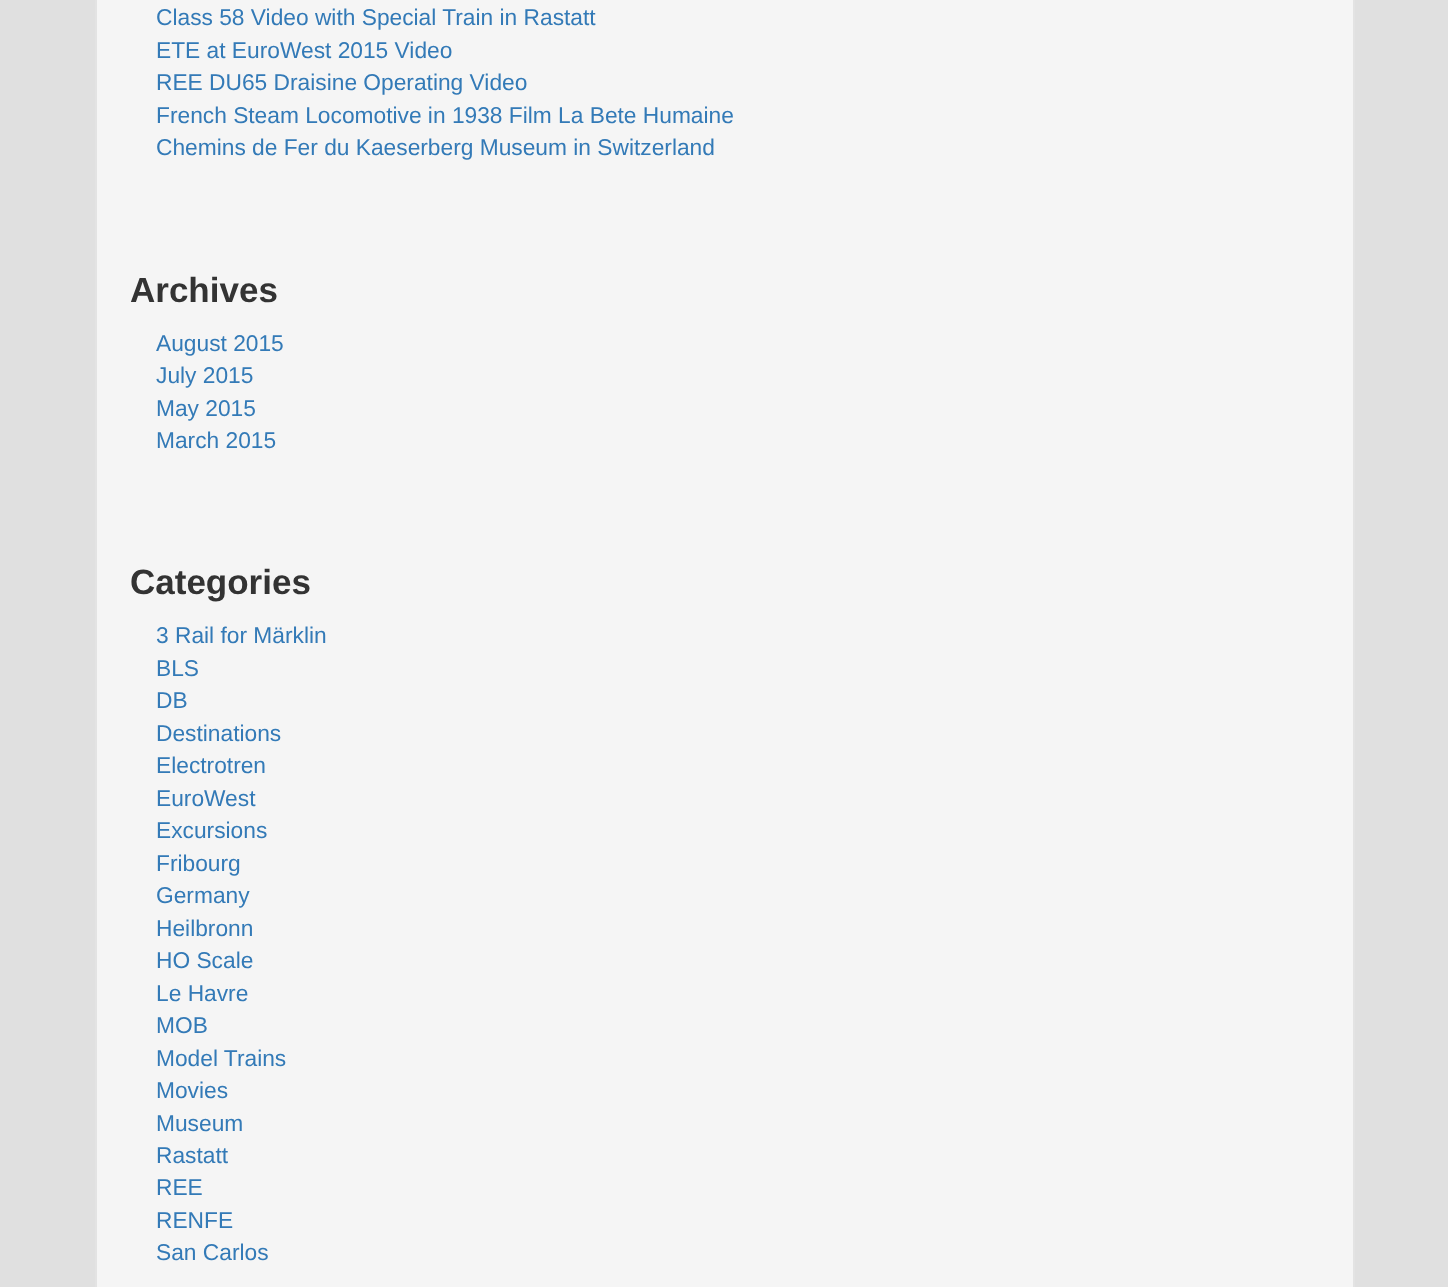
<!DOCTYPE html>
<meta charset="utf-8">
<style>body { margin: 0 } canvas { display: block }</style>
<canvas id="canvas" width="1448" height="1287"></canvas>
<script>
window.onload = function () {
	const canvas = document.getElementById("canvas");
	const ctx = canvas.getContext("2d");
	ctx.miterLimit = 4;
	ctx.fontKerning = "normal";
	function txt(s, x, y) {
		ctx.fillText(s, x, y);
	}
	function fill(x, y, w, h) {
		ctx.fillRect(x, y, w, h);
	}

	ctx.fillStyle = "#E0E0E0";
	fill(0, 0, 1448, 1287);
	ctx.fillStyle = "#F5F5F5";
	ctx.beginPath();
	ctx.rect(96, -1, 1258, 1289);
	ctx.fill();
	ctx.strokeStyle = "#E3E3E3";
	ctx.lineWidth = 2;
	ctx.stroke();
	ctx.font = "22.75px Liberation Sans";
	ctx.fillStyle = "#337AB7";
	txt("Class 58 Video with Special Train in Rastatt", 156, 25);
	txt("ETE at EuroWest 2015 Video", 156, 58);
	txt("REE DU65 Draisine Operating Video", 156, 90);
	txt("French Steam Locomotive in 1938 Film La Bete Humaine", 156, 123);
	txt("Chemins de Fer du Kaeserberg Museum in Switzerland", 156, 155);
	ctx.font = "bold 35px Liberation Sans";
	ctx.fillStyle = "#333333";
	txt("Archives", 130, 302);
	ctx.font = "22.75px Liberation Sans";
	ctx.fillStyle = "#337AB7";
	txt("August 2015", 156, 351);
	txt("July 2015", 156, 383);
	txt("May 2015", 156, 416);
	txt("March 2015", 156, 448);
	ctx.font = "bold 35px Liberation Sans";
	ctx.fillStyle = "#333333";
	txt("Categories", 130, 594);
	ctx.font = "22.75px Liberation Sans";
	ctx.fillStyle = "#337AB7";
	txt("3 Rail for Märklin", 156, 643);
	txt("BLS", 156, 676);
	txt("DB", 156, 708);
	txt("Destinations", 156, 741);
	txt("Electrotren", 156, 773);
	txt("EuroWest", 156, 806);
	txt("Excursions", 156, 838);
	txt("Fribourg", 156, 871);
	txt("Germany", 156, 903);
	txt("Heilbronn", 156, 936);
	txt("HO Scale", 156, 968);
	txt("Le Havre", 156, 1001);
	txt("MOB", 156, 1033);
	txt("Model Trains", 156, 1066);
	txt("Movies", 156, 1098);
	txt("Museum", 156, 1131);
	txt("Rastatt", 156, 1163);
	txt("REE", 156, 1195);
	txt("RENFE", 156, 1228);
	txt("San Carlos", 156, 1260);
};
</script>
